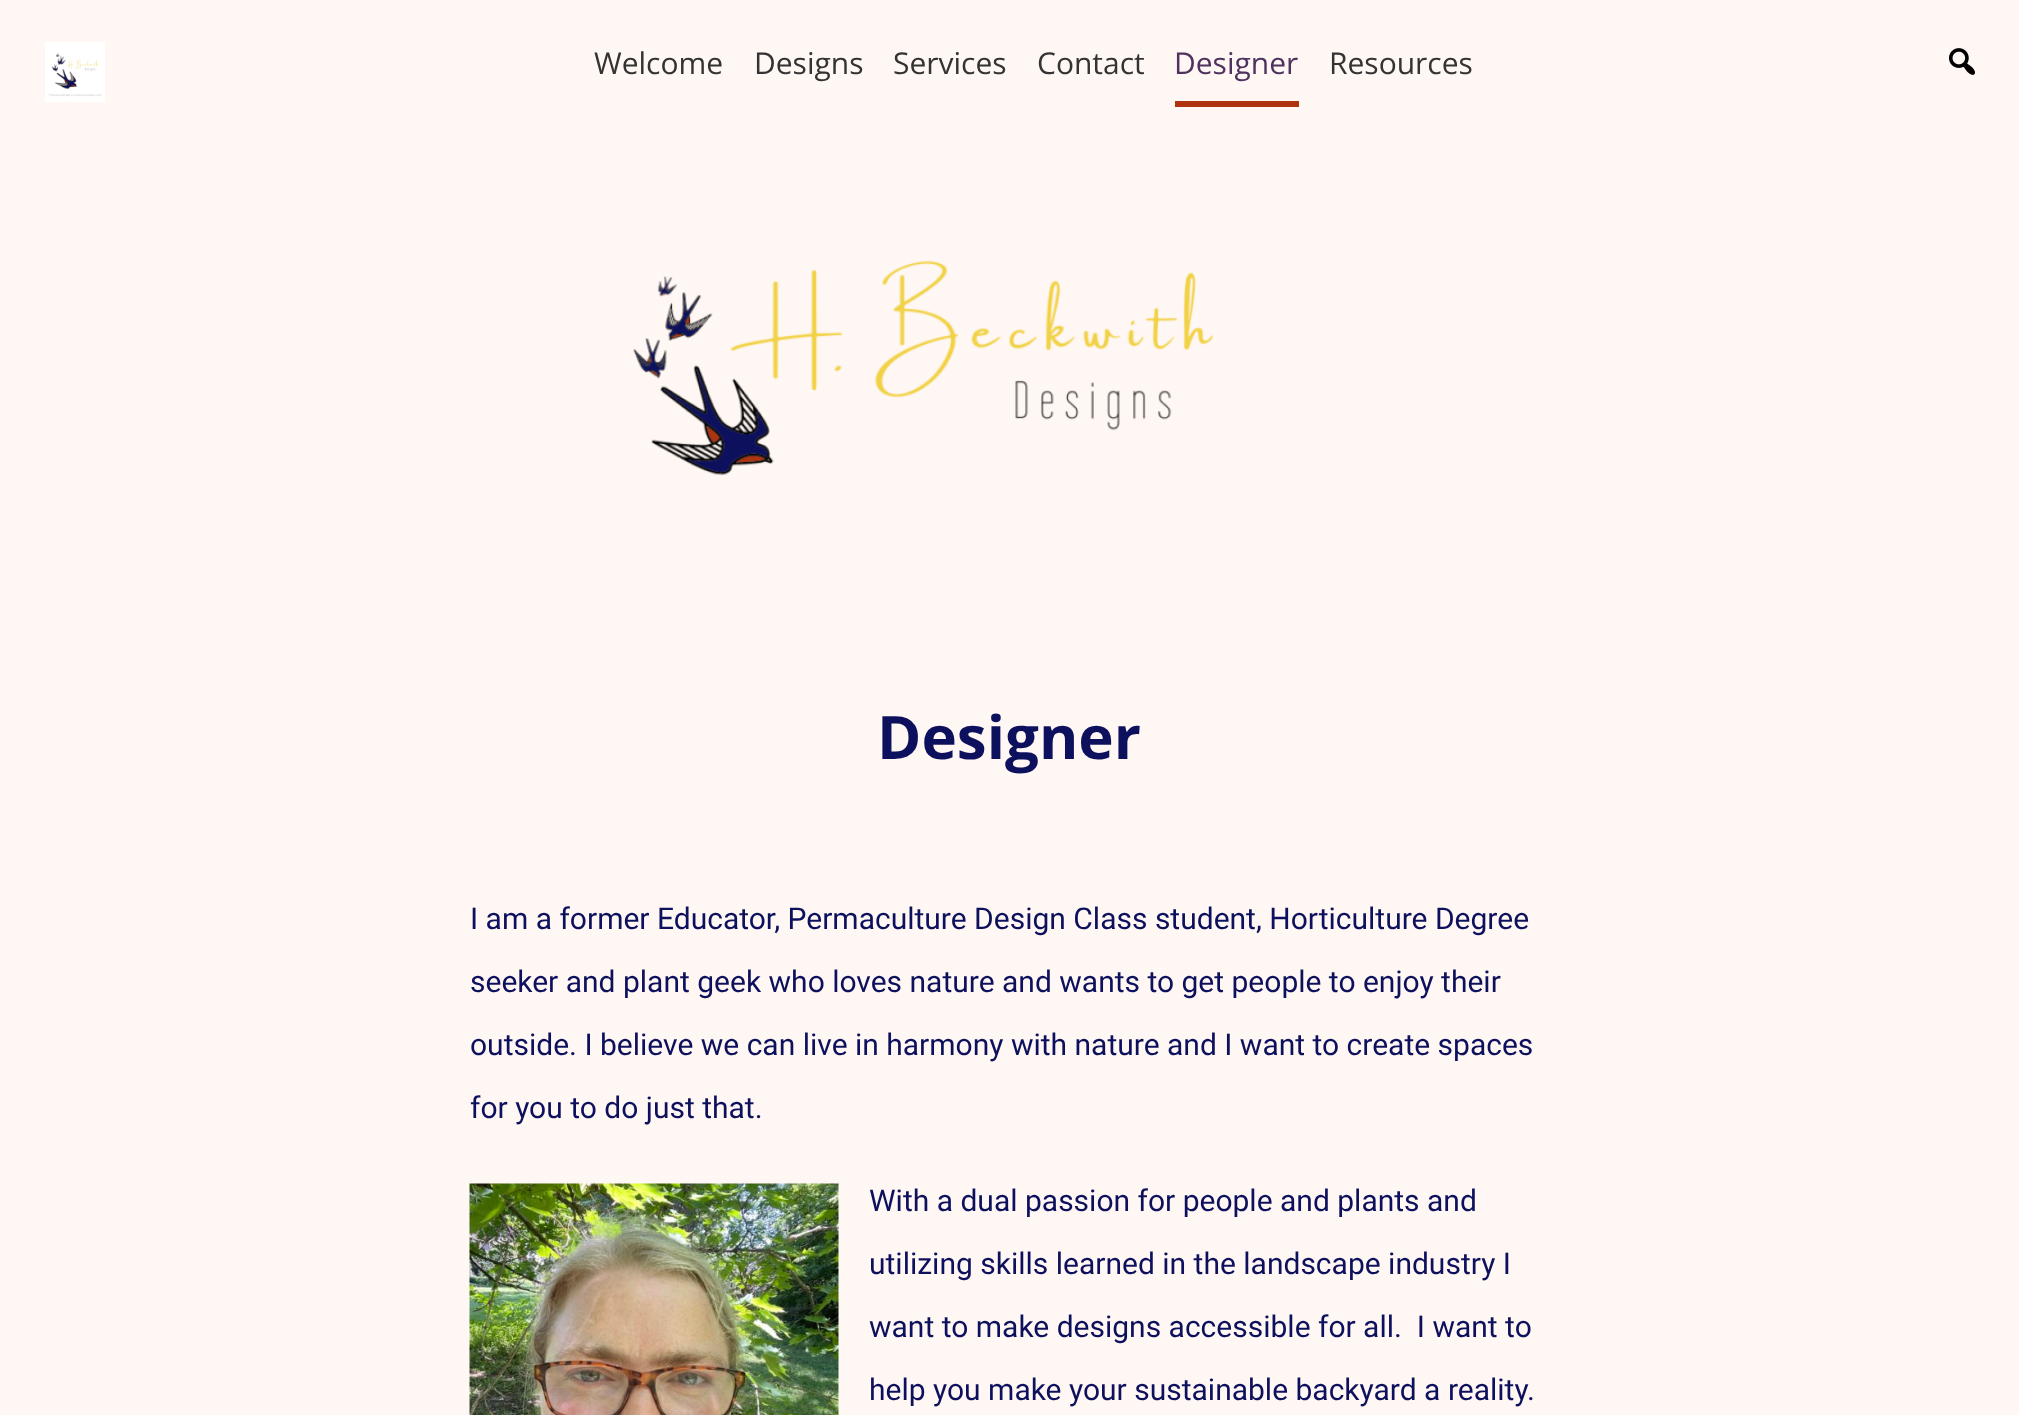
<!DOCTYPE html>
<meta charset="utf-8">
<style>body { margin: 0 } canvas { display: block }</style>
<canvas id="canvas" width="2019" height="1415"></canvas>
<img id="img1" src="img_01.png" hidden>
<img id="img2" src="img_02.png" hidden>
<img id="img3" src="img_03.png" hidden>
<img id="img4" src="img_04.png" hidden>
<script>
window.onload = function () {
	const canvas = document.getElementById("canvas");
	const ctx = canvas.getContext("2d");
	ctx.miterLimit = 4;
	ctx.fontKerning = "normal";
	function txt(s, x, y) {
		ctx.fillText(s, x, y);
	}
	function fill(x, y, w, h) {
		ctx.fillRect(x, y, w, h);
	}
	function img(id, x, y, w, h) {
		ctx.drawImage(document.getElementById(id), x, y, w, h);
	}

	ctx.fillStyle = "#FFF7F3";
	fill(0, 0, 2019, 1415);
	img("img1", 45, 42, 60, 60);
	ctx.fillStyle = "#AE330F";
	fill(1175, 101, 124, 6);
	img("img2", 1949, 48, 26, 27);
	img("img3", 633, 260, 581, 216);
	img("img4", 469, 1183, 370, 232);
	ctx.font = "30px Open Sans";
	ctx.fillStyle = "#333333";
	txt("Welcome", 594, 74);
	txt("Designs", 754, 74);
	txt("Services", 893, 74);
	txt("Contact", 1037, 74);
	ctx.fillStyle = "#503260";
	txt("Designer", 1174, 74);
	ctx.fillStyle = "#333333";
	txt("Resources", 1329, 74);
	ctx.font = "bold 60px Open Sans";
	ctx.fillStyle = "#0D105D";
	txt("Designer", 877, 759);
	ctx.font = "30px Roboto";
	txt("I am a former Educator, Permaculture Design Class student, Horticulture Degree", 470, 929);
	txt("seeker and plant geek who loves nature and wants to get people to enjoy their", 470, 992);
	txt("outside. I believe we can live in harmony with nature and I want to create spaces", 470, 1055);
	txt("for you to do just that.", 470, 1118);
	txt("With a dual passion for people and plants and", 869, 1211);
	txt("utilizing skills learned in the landscape industry I", 869, 1274);
	txt("want to make designs accessible for all.  I want to", 869, 1337);
	txt("help you make your sustainable backyard a reality.", 869, 1400);
};
</script>
